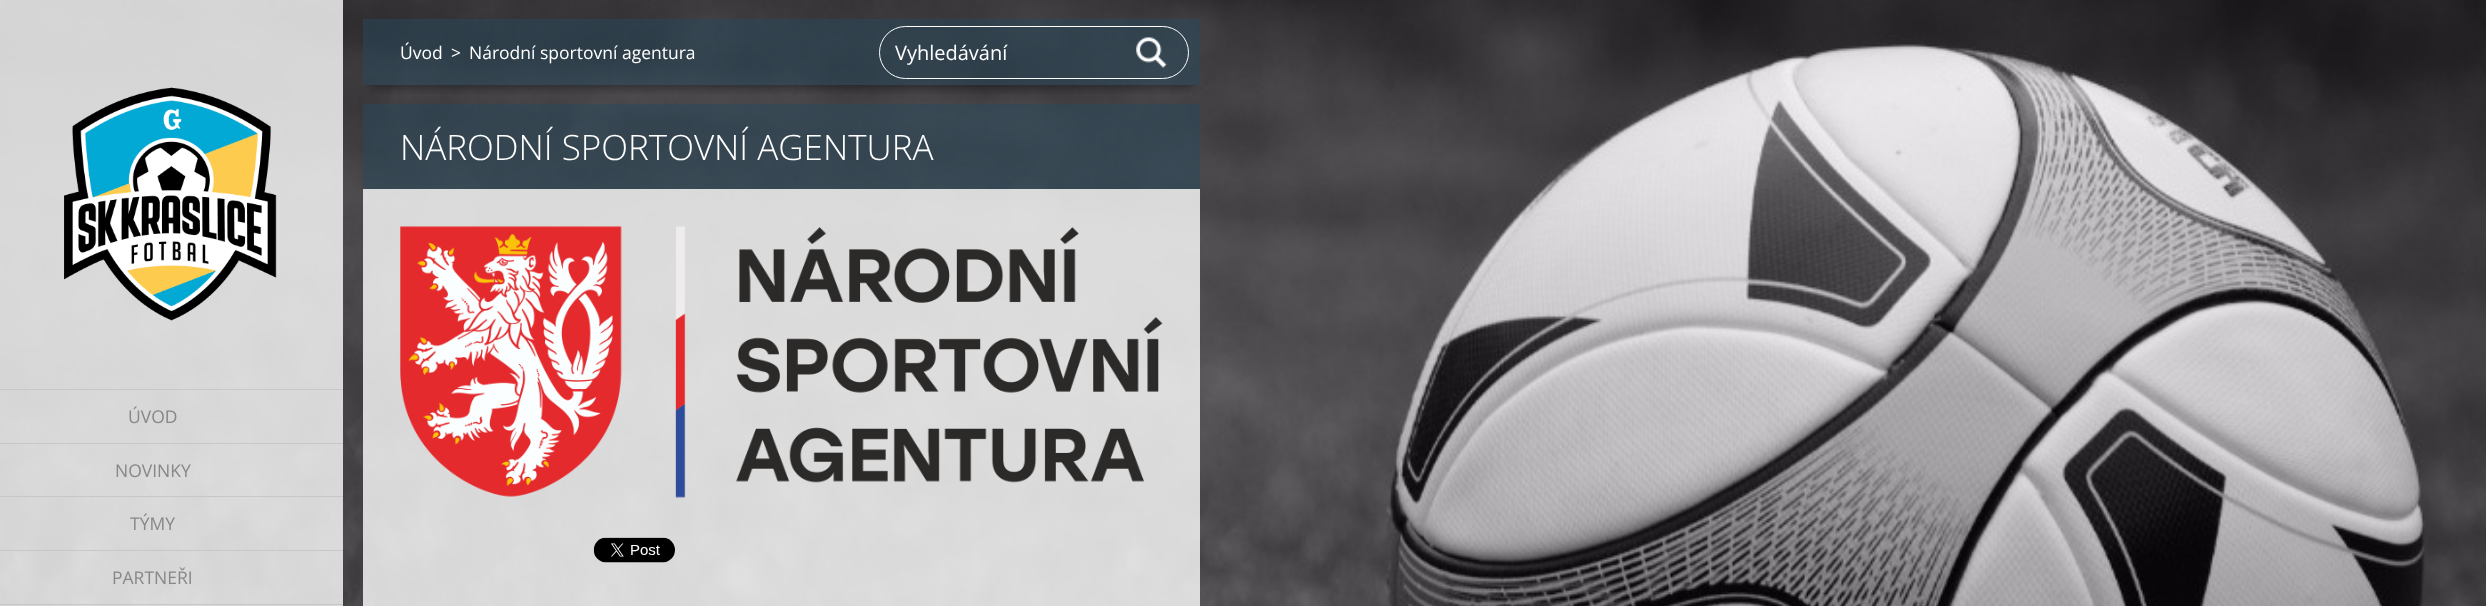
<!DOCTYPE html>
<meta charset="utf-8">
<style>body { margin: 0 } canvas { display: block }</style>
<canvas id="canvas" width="2486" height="606"></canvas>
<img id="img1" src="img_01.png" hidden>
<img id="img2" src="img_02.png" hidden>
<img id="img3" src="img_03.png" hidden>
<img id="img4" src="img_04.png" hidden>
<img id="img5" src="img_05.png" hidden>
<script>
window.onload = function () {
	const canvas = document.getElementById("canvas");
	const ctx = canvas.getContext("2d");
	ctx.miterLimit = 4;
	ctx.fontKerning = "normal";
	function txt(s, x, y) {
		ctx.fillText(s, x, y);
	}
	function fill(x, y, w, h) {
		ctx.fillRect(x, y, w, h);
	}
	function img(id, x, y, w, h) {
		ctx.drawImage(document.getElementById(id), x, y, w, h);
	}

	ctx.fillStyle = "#FFFFFF";
	fill(0, 0, 2486, 606);
	img("img1", 0, 0, 2486, 606);
	ctx.save();
	ctx.beginPath();
	ctx.rect(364, 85, 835, 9);
	ctx.clip();
	ctx.fillStyle = "rgba(0, 0, 0, 0.35)";
	ctx.filter = "blur(4px)";
	ctx.beginPath();
	ctx.rect(370, 36, 823, 52);
	ctx.fill();
	ctx.filter = "none";
	ctx.restore();
	ctx.fillStyle = "rgba(38, 73, 94, 0.5)";
	fill(363, 19, 837, 66);
	fill(363, 104, 837, 85);
	ctx.fillStyle = "rgba(255, 255, 255, 0.8)";
	fill(363, 189, 837, 349);
	img("img2", 400, 226, 763, 272);
	fill(363, 538, 837, 68);
	img("img3", 593, 537, 82, 26);
	ctx.beginPath();
	ctx.roundRect(879.5, 26.5, 309, 52, 26);
	ctx.strokeStyle = "#FFFFFF";
	ctx.stroke();
	img("img4", 1136, 37, 31, 31);
	fill(0, 0, 343, 358);
	img("img5", 64, 87, 213, 234);
	fill(0, 358, 343, 31);
	fill(0, 390, 343, 216);
	ctx.fillStyle = "#C7C7C7";
	fill(0, 389, 343, 1);
	fill(0, 443, 343, 1);
	fill(0, 496, 343, 1);
	fill(0, 550, 343, 1);
	fill(0, 604, 343, 1);
	ctx.font = "17.5px Open Sans";
	ctx.fillStyle = "#FFFFFF";
	txt("Úvod", 400, 59);
	txt(">", 451, 59);
	txt("Národní sportovní agentura", 469, 59);
	ctx.font = "300 35px Open Sans";
	txt("NÁRODNÍ SPORTOVNÍ AGENTURA", 400, 160);
	ctx.font = "20px Open Sans";
	txt("Vyhledávání", 895, 60);
	ctx.font = "17.5px Open Sans";
	ctx.fillStyle = "#878787";
	txt("ÚVOD", 128, 423);
	txt("NOVINKY", 115, 477);
	txt("TÝMY", 130, 530);
	txt("PARTNEŘI", 112, 584);
};
</script>
